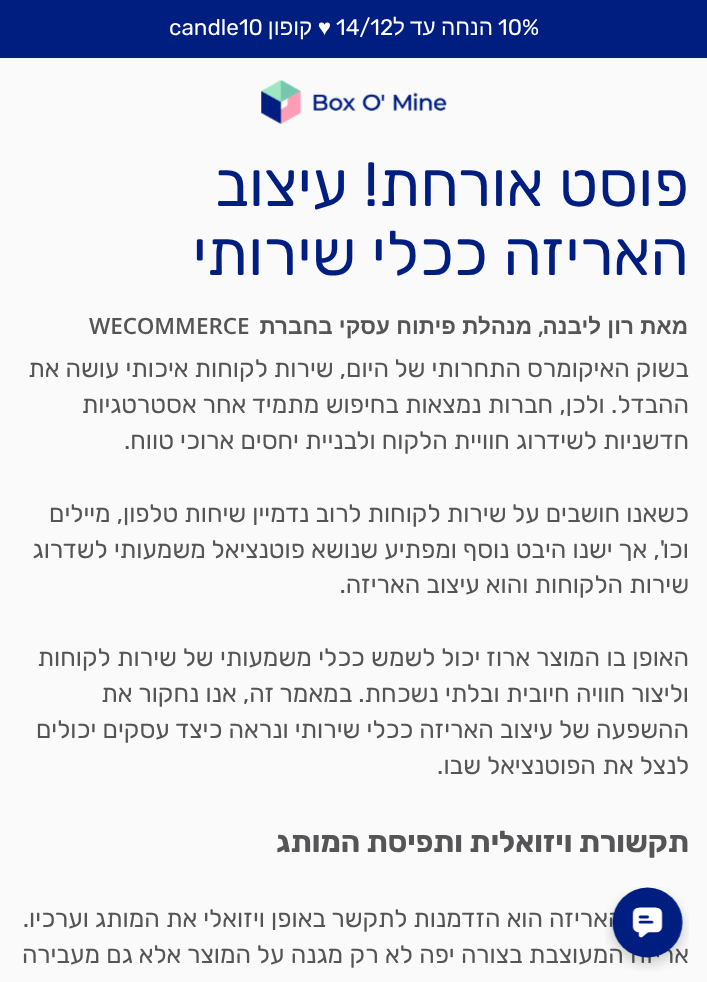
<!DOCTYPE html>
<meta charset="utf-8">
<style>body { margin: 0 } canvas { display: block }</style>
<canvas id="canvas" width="707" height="982"></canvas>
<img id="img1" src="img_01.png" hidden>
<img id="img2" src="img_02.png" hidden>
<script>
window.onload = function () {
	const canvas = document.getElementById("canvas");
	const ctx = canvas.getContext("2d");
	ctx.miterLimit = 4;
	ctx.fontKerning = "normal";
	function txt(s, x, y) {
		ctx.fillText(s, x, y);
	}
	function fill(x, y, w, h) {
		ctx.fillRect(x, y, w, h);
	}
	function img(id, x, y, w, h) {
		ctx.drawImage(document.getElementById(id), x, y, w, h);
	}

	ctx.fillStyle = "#FAFAFA";
	fill(0, 0, 707, 982);
	ctx.fillStyle = "#001E80";
	fill(0, 0, 707, 58);
	img("img1", 261, 79, 186, 45);
	ctx.font = "22.5px Rubik";
	ctx.fillStyle = "#FFFFFF";
	txt("10%", 498, 35);
	ctx.wordSpacing = "-1px";
	ctx.direction = "rtl";
	ctx.font = "22.5px Liberation Sans";
	txt("הנחה עד ל", 493, 35);
	ctx.wordSpacing = "0px";
	ctx.direction = "ltr";
	ctx.font = "22.5px Rubik";
	txt("14/12", 336, 35);
	ctx.wordSpacing = "-1px";
	ctx.direction = "rtl";
	ctx.font = "22.5px Liberation Sans";
	txt("♥ קופון", 331, 35);
	ctx.wordSpacing = "0px";
	ctx.direction = "ltr";
	ctx.font = "22.5px Rubik";
	txt("candle10", 169, 35);
	ctx.direction = "rtl";
	ctx.font = "62.5px Rubik";
	ctx.fillStyle = "#001E80";
	txt("פוסט אורחת! עיצוב", 689, 206);
	txt("האריזה ככלי שירותי", 689, 275);
	ctx.font = "bold 22.5px Liberation Sans";
	ctx.fillStyle = "#555456";
	txt("מאת רון ליבנה", 688, 334);
	ctx.font = "600 22.5px Open Sans";
	txt(",", 544, 334);
	ctx.font = "bold 22.5px Liberation Sans";
	txt("מנהלת פיתוח עסקי בחברת", 532, 334);
	ctx.direction = "ltr";
	ctx.font = "600 22.5px Open Sans";
	txt("WECOMMERCE", 89, 334);
	ctx.direction = "rtl";
	ctx.font = "25px Rubik";
	txt("בשוק האיקומרס התחרותי של היום, שירות לקוחות איכותי עושה את", 689, 377);
	ctx.wordSpacing = "0.25px";
	txt("ההבדל. ולכן, חברות נמצאות בחיפוש מתמיד אחר אסטרטגיות", 689, 413);
	ctx.wordSpacing = "0px";
	txt("חדשניות לשידרוג חוויית הלקוח ולבניית יחסים ארוכי טווח.", 689, 449);
	txt("כשאנו חושבים על שירות לקוחות לרוב נדמיין שיחות טלפון, מיילים", 689, 522);
	ctx.wordSpacing = "0.25px";
	txt("וכו', אך ישנו היבט נוסף ומפתיע שנושא פוטנציאל משמעותי לשדרוג", 689, 558);
	ctx.wordSpacing = "0px";
	txt("שירות הלקוחות והוא עיצוב האריזה.", 689, 593);
	ctx.wordSpacing = "0.25px";
	txt("האופן בו המוצר ארוז יכול לשמש ככלי משמעותי של שירות לקוחות", 689, 666);
	txt("וליצור חוויה חיובית ובלתי נשכחת. במאמר זה, אנו נחקור את", 689, 702);
	ctx.wordSpacing = "0.1px";
	txt("ההשפעה של עיצוב האריזה ככלי שירותי ונראה כיצד עסקים יכולים", 689, 738);
	ctx.wordSpacing = "0.5px";
	txt("לנצל את הפוטנציאל שבו.", 689, 774);
	ctx.wordSpacing = "0px";
	ctx.font = "bold 30px Rubik";
	txt("תקשורת ויזואלית ותפיסת המותג", 689, 852);
	ctx.font = "25px Rubik";
	txt("עיצוב האריזה הוא הזדמנות לתקשר באופן ויזואלי את המותג וערכיו.", 683, 927);
	ctx.wordSpacing = "0.25px";
	txt("אריזה המעוצבת בצורה יפה לא רק מגנה על המוצר אלא גם מעבירה", 689, 963);
	img("img2", 605, 887, 84, 84);
};
</script>
